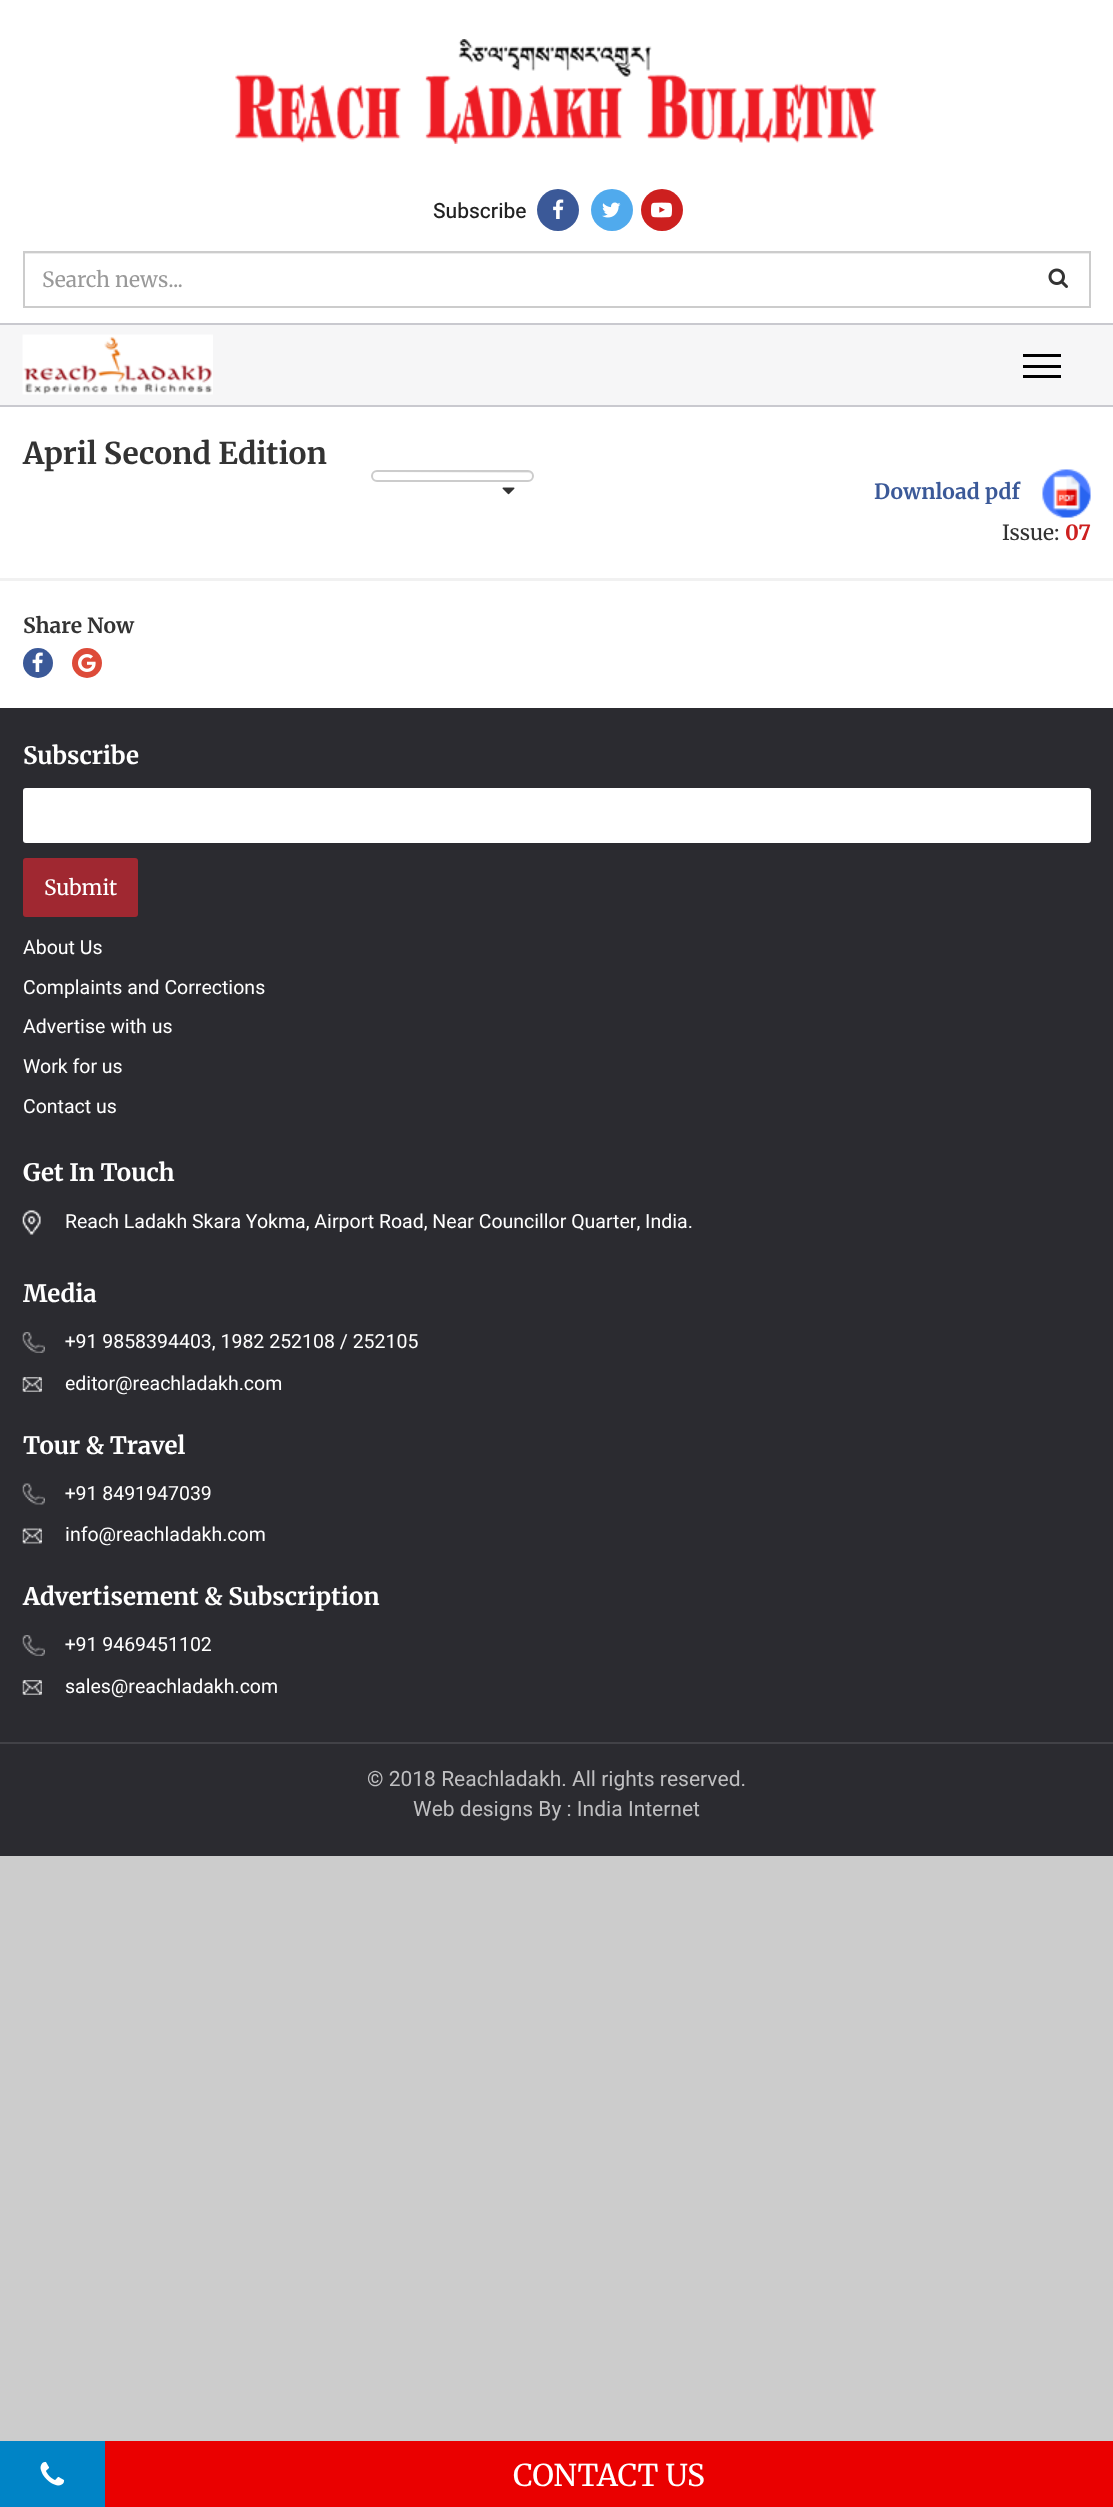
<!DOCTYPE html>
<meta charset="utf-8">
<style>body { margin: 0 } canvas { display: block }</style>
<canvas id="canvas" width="1113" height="2507"></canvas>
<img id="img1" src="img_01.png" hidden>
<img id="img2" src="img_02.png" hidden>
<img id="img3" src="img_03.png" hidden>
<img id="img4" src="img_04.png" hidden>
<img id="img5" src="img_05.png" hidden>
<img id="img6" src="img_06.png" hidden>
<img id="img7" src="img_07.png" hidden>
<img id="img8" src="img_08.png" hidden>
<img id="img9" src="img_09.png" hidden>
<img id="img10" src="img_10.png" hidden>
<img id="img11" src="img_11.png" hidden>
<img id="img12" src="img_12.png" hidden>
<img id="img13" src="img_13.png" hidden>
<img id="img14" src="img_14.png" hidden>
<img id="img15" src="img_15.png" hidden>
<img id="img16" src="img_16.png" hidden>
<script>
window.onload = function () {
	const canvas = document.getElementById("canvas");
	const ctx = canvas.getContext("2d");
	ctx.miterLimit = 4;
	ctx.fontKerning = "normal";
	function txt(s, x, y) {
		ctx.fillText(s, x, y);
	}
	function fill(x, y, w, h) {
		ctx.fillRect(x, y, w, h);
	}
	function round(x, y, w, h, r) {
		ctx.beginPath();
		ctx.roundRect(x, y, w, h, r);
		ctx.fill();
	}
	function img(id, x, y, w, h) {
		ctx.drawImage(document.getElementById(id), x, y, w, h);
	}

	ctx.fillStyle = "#CCCCCC";
	fill(0, 0, 1113, 2507);
	ctx.fillStyle = "#FFFFFF";
	fill(0, 0, 1113, 708);
	img("img1", 235, 39, 642, 105);
	ctx.fillStyle = "#3B5998";
	ctx.beginPath();
	ctx.arc(558, 210, 21, 0, Math.PI * 2);
	ctx.fill();
	img("img2", 553, 199, 11, 20);
	ctx.fillStyle = "#50AAED";
	ctx.beginPath();
	ctx.arc(612, 210, 21, 0, Math.PI * 2);
	ctx.fill();
	img("img3", 602, 202, 19, 16);
	ctx.fillStyle = "#CD201F";
	ctx.beginPath();
	ctx.arc(662, 210, 21, 0, Math.PI * 2);
	ctx.fill();
	img("img4", 651, 202, 21, 16);
	ctx.fillStyle = "#ECECEC";
	fill(24, 253, 1065, 1);
	ctx.strokeStyle = "#CCCCCC";
	ctx.lineWidth = 2;
	ctx.strokeRect(24, 252, 1066, 55);
	img("img5", 1048, 268, 20, 20);
	ctx.fillStyle = "#F6F6F7";
	fill(0, 325, 1113, 80);
	ctx.fillStyle = "#C9C9CF";
	fill(0, 323, 1113, 2);
	fill(0, 405, 1113, 2);
	img("img6", 22, 334, 191, 61);
	ctx.fillStyle = "#000000";
	fill(1023, 354, 38, 3);
	fill(1023, 365, 38, 3);
	fill(1023, 375, 38, 3);
	ctx.fillStyle = "#F1F1F1";
	fill(0, 578, 1113, 3);
	ctx.fillStyle = "#ECECEC";
	ctx.beginPath();
	ctx.moveTo(376, 472);
	ctx.lineTo(529, 473);
	ctx.lineTo(532, 474);
	ctx.bezierCurveTo(532, 475, 533, 477, 532, 478);
	ctx.bezierCurveTo(534, 476, 533, 473, 530, 471);
	ctx.lineTo(402, 471);
	ctx.bezierCurveTo(394, 471, 372, 467, 372, 475);
	ctx.bezierCurveTo(372, 473, 374, 472, 376, 472);
	ctx.closePath();
	ctx.fill();
	ctx.beginPath();
	ctx.roundRect(372, 471, 161, 10, 5);
	ctx.stroke();
	img("img7", 502, 487, 13, 8);
	img("img8", 1042, 469, 49, 49);
	ctx.fillStyle = "#3B5998";
	ctx.beginPath();
	ctx.arc(38, 663, 15, 0, Math.PI * 2);
	ctx.fill();
	img("img9", 32, 652, 11, 20);
	ctx.fillStyle = "#DD4B39";
	ctx.beginPath();
	ctx.arc(87, 663, 15, 0, Math.PI * 2);
	ctx.fill();
	img("img10", 78, 654, 18, 18);
	ctx.fillStyle = "#2B2B30";
	fill(0, 708, 1113, 1148);
	ctx.fillStyle = "#FFFFFF";
	round(23, 788, 1068, 55, 3);
	ctx.fillStyle = "#A02831";
	round(23, 858, 115, 59, 3);
	img("img11", 22, 1210, 19, 25);
	img("img12", 22, 1332, 23, 21);
	img("img13", 22, 1377, 20, 15);
	img("img14", 22, 1483, 23, 22);
	img("img15", 22, 1528, 20, 16);
	img("img12", 22, 1635, 23, 21);
	img("img13", 22, 1680, 20, 15);
	ctx.fillStyle = "#424247";
	fill(0, 1742, 1113, 2);
	ctx.fillStyle = "#0084C6";
	fill(0, 2441, 105, 66);
	img("img16", 40, 2461, 25, 25);
	ctx.fillStyle = "#EA0000";
	fill(105, 2441, 1008, 66);
	ctx.font = "500 21px Heebo";
	ctx.fillStyle = "#222222";
	txt("Subscribe", 433, 218);
	ctx.font = "21px Merriweather";
	ctx.fillStyle = "#999999";
	txt("Search news...", 42, 287);
	ctx.font = "bold 30px Merriweather";
	ctx.fillStyle = "#333333";
	txt("April Second Edition", 23, 464);
	ctx.font = "bold 21px Merriweather";
	ctx.fillStyle = "#3B5998";
	txt("Download pdf", 874, 499);
	ctx.font = "21px Merriweather";
	ctx.fillStyle = "#333333";
	txt("Issue:", 1002, 540);
	ctx.font = "bold 21px Merriweather";
	ctx.fillStyle = "#CD201F";
	txt("07", 1065, 540);
	ctx.fillStyle = "#333333";
	txt("Share Now", 23, 633);
	ctx.font = "bold 24px Merriweather";
	ctx.fillStyle = "#FFFFFF";
	txt("Subscribe", 23, 764);
	ctx.font = "21px Merriweather";
	txt("Submit", 44, 895);
	ctx.font = "19.5px Heebo";
	txt("About Us", 23, 954);
	txt("Complaints and Corrections", 23, 994);
	txt("Advertise with us", 23, 1033);
	txt("Work for us", 23, 1073);
	txt("Contact us", 23, 1113);
	ctx.font = "bold 24px Merriweather";
	txt("Get In Touch", 23, 1181);
	ctx.font = "19.5px Heebo";
	txt("Reach Ladakh Skara Yokma, Airport Road, Near Councillor Quarter, India.", 65, 1228);
	ctx.font = "bold 24px Merriweather";
	txt("Media", 23, 1302);
	ctx.font = "19.5px Heebo";
	txt("+91 9858394403, 1982 252108 / 252105", 65, 1348);
	txt("editor@reachladakh.com", 65, 1390);
	ctx.font = "bold 24px Merriweather";
	txt("Tour & Travel", 23, 1454);
	ctx.font = "19.5px Heebo";
	txt("+91 8491947039", 65, 1500);
	txt("info@reachladakh.com", 65, 1541);
	ctx.font = "bold 24px Merriweather";
	txt("Advertisement & Subscription", 23, 1605);
	ctx.font = "19.5px Heebo";
	txt("+91 9469451102", 65, 1651);
	txt("sales@reachladakh.com", 65, 1693);
	ctx.font = "21px Heebo";
	ctx.fillStyle = "#BFBFC1";
	txt("© 2018 Reachladakh. All rights reserved.", 367, 1786);
	txt("Web designs By : India Internet", 413, 1816);
	ctx.font = "30px Merriweather";
	ctx.fillStyle = "#FFFFFF";
	txt("CONTACT US", 513, 2486);
};
</script>
